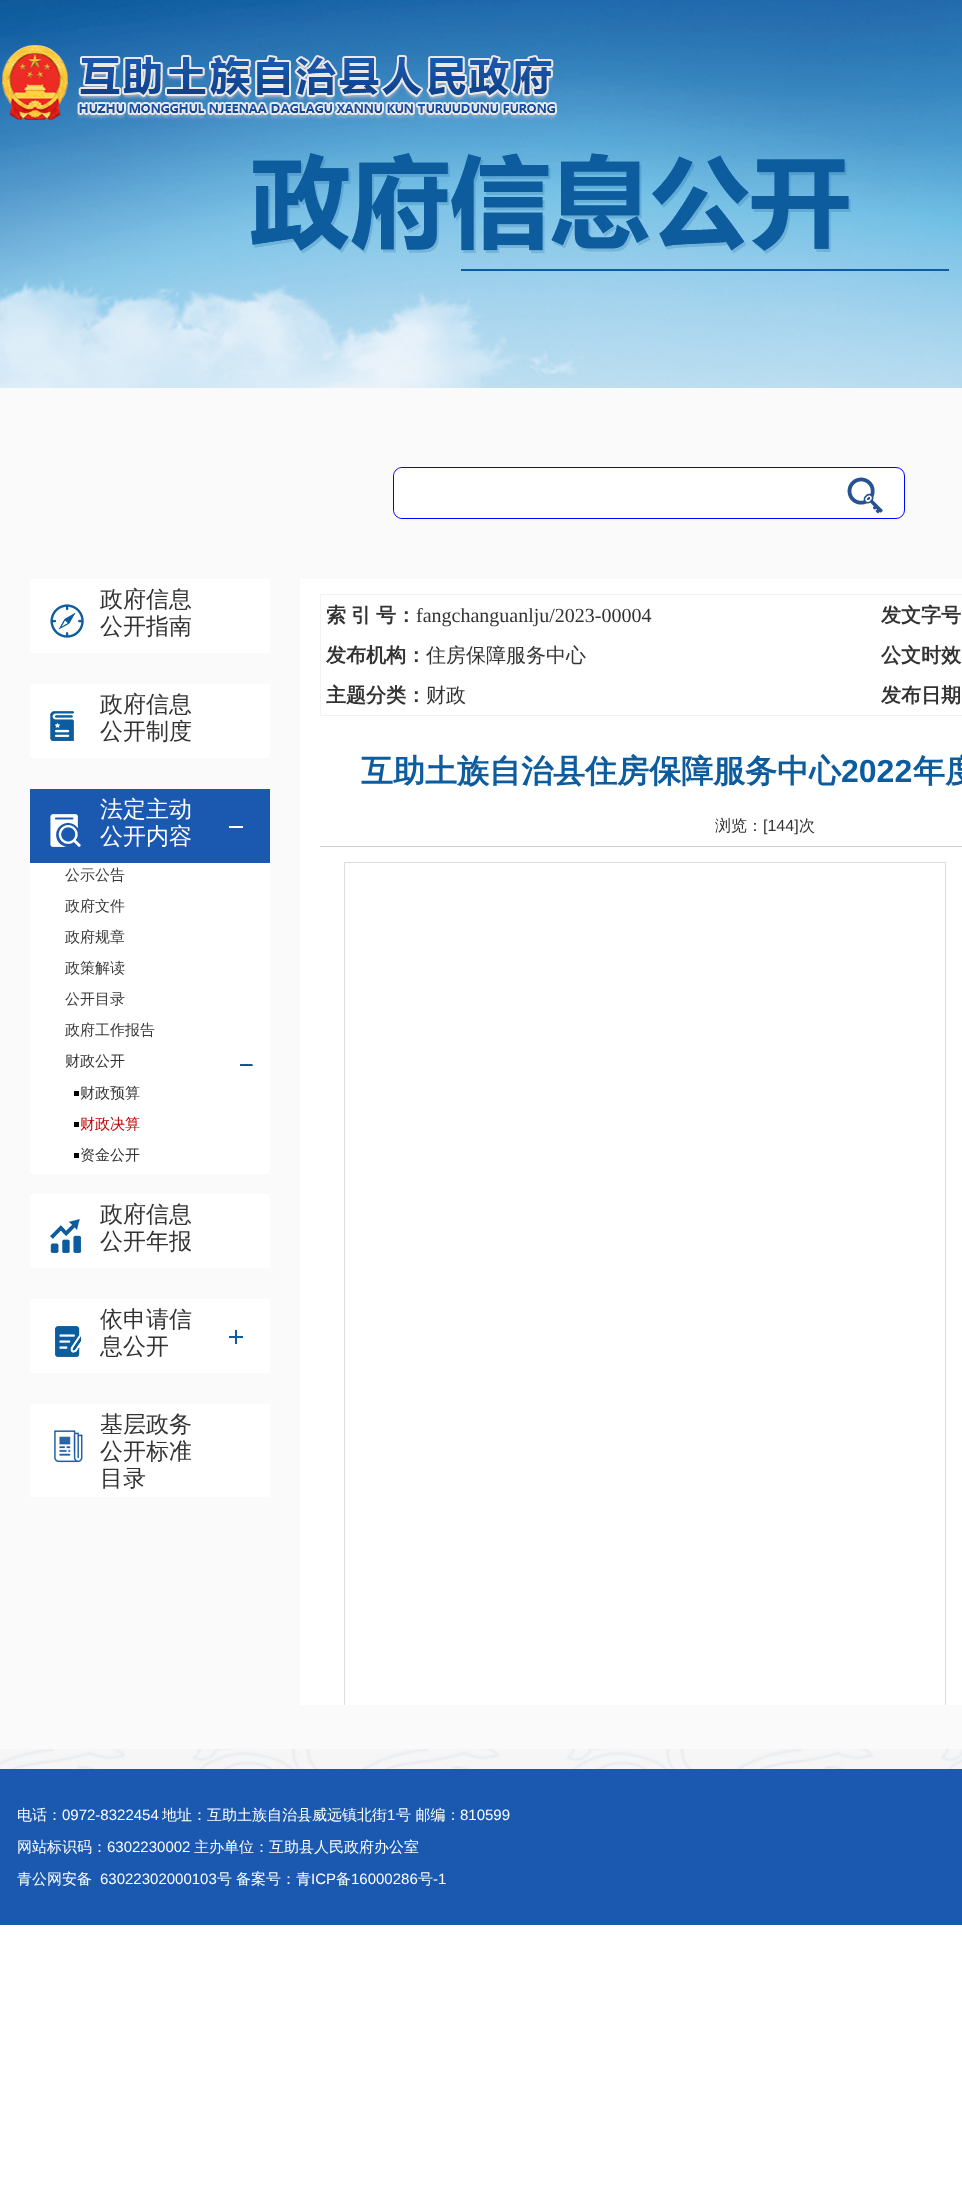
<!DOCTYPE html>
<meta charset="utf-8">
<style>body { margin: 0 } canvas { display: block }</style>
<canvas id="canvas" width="962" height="2187"></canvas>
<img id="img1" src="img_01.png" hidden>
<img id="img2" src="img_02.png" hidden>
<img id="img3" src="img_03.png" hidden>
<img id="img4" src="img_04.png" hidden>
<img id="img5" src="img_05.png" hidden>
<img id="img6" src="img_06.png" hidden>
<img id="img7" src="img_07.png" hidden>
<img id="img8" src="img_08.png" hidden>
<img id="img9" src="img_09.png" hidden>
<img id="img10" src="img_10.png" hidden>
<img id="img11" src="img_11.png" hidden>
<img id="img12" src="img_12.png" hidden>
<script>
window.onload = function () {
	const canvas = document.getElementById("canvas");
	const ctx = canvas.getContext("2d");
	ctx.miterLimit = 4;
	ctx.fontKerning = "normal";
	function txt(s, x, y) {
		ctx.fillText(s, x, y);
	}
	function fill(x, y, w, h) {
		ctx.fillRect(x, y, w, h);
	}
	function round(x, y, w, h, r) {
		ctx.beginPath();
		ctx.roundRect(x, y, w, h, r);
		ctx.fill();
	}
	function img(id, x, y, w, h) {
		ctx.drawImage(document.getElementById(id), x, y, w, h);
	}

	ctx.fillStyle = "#FFFFFF";
	fill(0, 0, 962, 2187);
	img("img1", 0, 0, 962, 1769);
	img("img2", 2, 45, 556, 75);
	img("img3", 251, 153, 698, 118);
	ctx.fillStyle = "#FAFAFA";
	fill(0, 388, 962, 1361);
	ctx.fillStyle = "#FFFFFF";
	ctx.beginPath();
	ctx.roundRect(393.5, 467.5, 511, 51, 8.5);
	ctx.fill();
	ctx.strokeStyle = "#0000FF";
	ctx.stroke();
	round(394, 468, 450, 50, 9);
	img("img4", 847, 477, 36, 37);
	fill(30, 579, 240, 74);
	img("img5", 50, 604, 34, 34);
	fill(30, 684, 240, 74);
	img("img6", 50, 711, 24, 30);
	ctx.fillStyle = "#1A59AF";
	fill(30, 789, 240, 74);
	img("img7", 50, 814, 31, 33);
	ctx.fillStyle = "#FFFFFF";
	fill(229, 826, 14, 2);
	fill(30, 863, 240, 311);
	img("img8", 240, 1064, 13, 2);
	ctx.fillStyle = "#000000";
	fill(74, 1091, 5, 5);
	fill(74, 1122, 5, 5);
	fill(74, 1153, 5, 5);
	ctx.fillStyle = "#FFFFFF";
	fill(30, 1194, 240, 74);
	img("img9", 50, 1219, 31, 34);
	fill(30, 1299, 240, 74);
	img("img10", 55, 1326, 26, 31);
	img("img11", 229, 1330, 14, 14);
	fill(30, 1404, 240, 93);
	img("img12", 54, 1430, 29, 33);
	fill(300, 579, 662, 1126);
	ctx.fillStyle = "#F2F2F2";
	fill(320, 594, 642, 1);
	fill(320, 715, 642, 1);
	fill(320, 594, 1, 122);
	ctx.fillStyle = "#CCCCCC";
	fill(320, 846, 642, 1);
	ctx.save();
	ctx.beginPath();
	ctx.rect(300, 579, 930, 1126);
	ctx.clip();
	ctx.strokeStyle = "#DDDDDD";
	ctx.strokeRect(344.5, 862.5, 601, 901);
	ctx.restore();
	ctx.fillStyle = "#1A59AF";
	fill(0, 1769, 962, 156);
	ctx.font = "500 23px WenQuanYi Zen Hei";
	ctx.fillStyle = "#333333";
	txt("政府信息", 100, 607);
	txt("公开指南", 100, 634);
	txt("政府信息", 100, 712);
	txt("公开制度", 100, 739);
	ctx.fillStyle = "#FFFFFF";
	txt("法定主动", 100, 817);
	txt("公开内容", 100, 844);
	ctx.font = "500 15px WenQuanYi Zen Hei";
	ctx.fillStyle = "#393939";
	txt("公示公告", 65, 880);
	txt("政府文件", 65, 911);
	txt("政府规章", 65, 942);
	txt("政策解读", 65, 973);
	txt("公开目录", 65, 1004);
	txt("政府工作报告", 65, 1035);
	ctx.fillStyle = "#333333";
	txt("财政公开", 65, 1066);
	txt("财政预算", 80, 1098);
	ctx.fillStyle = "#B90303";
	txt("财政决算", 80, 1129);
	ctx.fillStyle = "#333333";
	txt("资金公开", 80, 1160);
	ctx.font = "500 23px WenQuanYi Zen Hei";
	txt("政府信息", 100, 1222);
	txt("公开年报", 100, 1249);
	txt("依申请信", 100, 1327);
	txt("息公开", 100, 1354);
	txt("基层政务", 100, 1432);
	txt("公开标准", 100, 1459);
	txt("目录", 100, 1486);
	ctx.font = "bold 20px WenQuanYi Zen Hei";
	txt("索", 326, 622);
	txt("引", 351, 622);
	txt("号：", 376, 622);
	ctx.font = "20px Liberation Serif";
	txt("fangchanguanlju/2023-00004", 416, 622);
	ctx.font = "bold 20px WenQuanYi Zen Hei";
	txt("发文字号", 881, 622);
	txt("发布机构：", 326, 662);
	ctx.font = "500 20px WenQuanYi Zen Hei";
	txt("住房保障服务中心", 426, 662);
	ctx.font = "bold 20px WenQuanYi Zen Hei";
	txt("公文时效", 881, 662);
	txt("主题分类：", 326, 702);
	ctx.font = "500 20px WenQuanYi Zen Hei";
	txt("财政", 426, 702);
	ctx.font = "bold 20px WenQuanYi Zen Hei";
	txt("发布日期", 881, 702);
	ctx.font = "bold 32px WenQuanYi Zen Hei";
	ctx.fillStyle = "#0D5C9E";
	txt("互助土族自治县住房保障服务中心", 361, 782);
	ctx.font = "bold 32px Liberation Sans";
	txt("2022", 841, 782);
	ctx.font = "bold 32px WenQuanYi Zen Hei";
	txt("年度", 913, 782);
	ctx.font = "500 16px WenQuanYi Zen Hei";
	ctx.fillStyle = "#333333";
	txt("浏览：", 715, 831);
	ctx.font = "16px Liberation Sans";
	txt("[144]", 763, 831);
	ctx.font = "500 16px WenQuanYi Zen Hei";
	txt("次", 799, 831);
	ctx.font = "500 15px WenQuanYi Zen Hei";
	ctx.fillStyle = "#FFFFFF";
	txt("电话：", 17, 1820);
	ctx.font = "15px Liberation Sans";
	txt("0972-8322454", 62, 1820);
	ctx.font = "500 15px WenQuanYi Zen Hei";
	txt("地址：互助土族自治县威远镇北街", 162, 1820);
	ctx.font = "15px Liberation Sans";
	txt("1", 387, 1820);
	ctx.font = "500 15px WenQuanYi Zen Hei";
	txt("号 邮编：", 396, 1820);
	ctx.font = "15px Liberation Sans";
	txt("810599", 460, 1820);
	ctx.font = "500 15px WenQuanYi Zen Hei";
	txt("网站标识码：", 17, 1852);
	ctx.font = "15px Liberation Sans";
	txt("6302230002", 107, 1852);
	ctx.font = "500 15px WenQuanYi Zen Hei";
	txt("主办单位：互助县人民政府办公室", 194, 1852);
	txt("青公网安备", 17, 1884);
	ctx.font = "15px Liberation Sans";
	txt("63022302000103", 100, 1884);
	ctx.font = "500 15px WenQuanYi Zen Hei";
	txt("号", 217, 1884);
	txt("备案号：青", 236, 1884);
	ctx.font = "15px Liberation Sans";
	txt("ICP", 311, 1884);
	ctx.font = "500 15px WenQuanYi Zen Hei";
	txt("备", 336, 1884);
	ctx.font = "15px Liberation Sans";
	txt("16000286", 351, 1884);
	ctx.font = "500 15px WenQuanYi Zen Hei";
	txt("号", 418, 1884);
	ctx.font = "15px Liberation Sans";
	txt("-1", 433, 1884);
};
</script>
